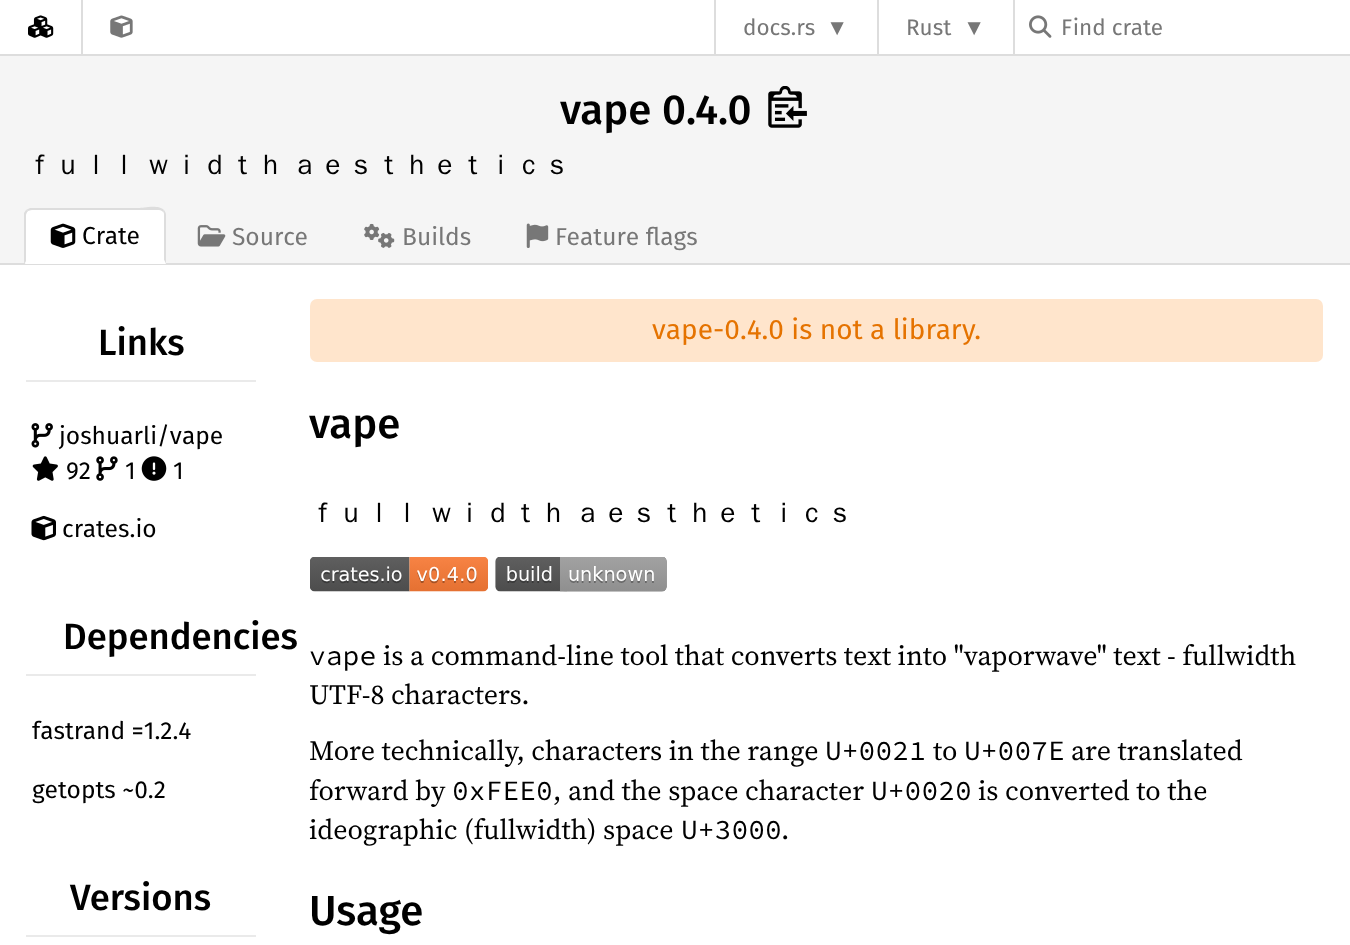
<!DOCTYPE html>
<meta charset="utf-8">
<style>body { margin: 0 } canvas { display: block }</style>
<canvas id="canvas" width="1350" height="945"></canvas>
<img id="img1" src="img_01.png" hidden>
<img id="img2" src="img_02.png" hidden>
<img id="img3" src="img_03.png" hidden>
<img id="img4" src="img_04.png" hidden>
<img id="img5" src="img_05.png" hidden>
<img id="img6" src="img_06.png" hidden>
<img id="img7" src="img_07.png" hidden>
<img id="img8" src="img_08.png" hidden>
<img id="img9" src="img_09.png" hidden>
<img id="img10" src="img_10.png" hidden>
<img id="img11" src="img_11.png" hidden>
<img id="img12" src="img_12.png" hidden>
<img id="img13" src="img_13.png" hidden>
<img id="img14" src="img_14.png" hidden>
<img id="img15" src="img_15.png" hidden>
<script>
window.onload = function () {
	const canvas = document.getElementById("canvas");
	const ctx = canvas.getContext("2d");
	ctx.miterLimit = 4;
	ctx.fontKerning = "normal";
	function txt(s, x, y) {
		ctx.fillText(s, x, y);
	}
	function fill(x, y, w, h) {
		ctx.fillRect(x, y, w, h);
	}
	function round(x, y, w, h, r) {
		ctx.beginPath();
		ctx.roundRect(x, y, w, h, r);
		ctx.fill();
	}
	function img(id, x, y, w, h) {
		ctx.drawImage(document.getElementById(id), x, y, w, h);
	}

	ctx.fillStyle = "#FFFFFF";
	fill(0, 0, 1350, 945);
	ctx.fillStyle = "#DDDDDD";
	fill(0, 54, 1350, 2);
	img("img1", 28, 15, 26, 23);
	fill(81, 0, 2, 54);
	img("img2", 110, 15, 23, 23);
	fill(714, 0, 2, 54);
	fill(877, 0, 2, 54);
	fill(1013, 0, 2, 54);
	img("img3", 1029, 15, 23, 23);
	ctx.fillStyle = "#F5F5F5";
	fill(0, 56, 1350, 207);
	ctx.fillStyle = "#DDDDDD";
	fill(0, 263, 1350, 2);
	img("img4", 768, 86, 39, 42);
	ctx.fillStyle = "#FFFFFF";
	ctx.beginPath();
	ctx.roundRect(26, 210, 139, 51, [5, 5, 0, 0]);
	ctx.fill();
	ctx.fillStyle = "#DDDDDD";
	ctx.beginPath();
	ctx.moveTo(32, 210);
	ctx.bezierCurveTo(30, 210, 29, 211, 28, 211);
	ctx.lineTo(26, 210);
	ctx.lineTo(30, 208);
	ctx.lineTo(139, 208);
	ctx.bezierCurveTo(142, 208, 159, 204, 164, 210);
	ctx.lineTo(163, 212);
	ctx.bezierCurveTo(162, 211, 161, 210, 159, 210);
	ctx.closePath();
	ctx.fill();
	ctx.beginPath();
	ctx.moveTo(164, 210);
	ctx.bezierCurveTo(165, 211, 166, 213, 166, 215);
	ctx.lineTo(166, 264);
	ctx.lineTo(164, 260);
	ctx.lineTo(164, 215);
	ctx.bezierCurveTo(164, 214, 164, 212, 163, 212);
	ctx.closePath();
	ctx.fill();
	ctx.fillStyle = "#FFFFFF";
	ctx.beginPath();
	ctx.moveTo(166, 264);
	ctx.lineTo(25, 264);
	ctx.lineTo(26, 261);
	ctx.lineTo(164, 261);
	ctx.lineTo(164, 260);
	ctx.closePath();
	ctx.fill();
	ctx.fillStyle = "#DDDDDD";
	ctx.beginPath();
	ctx.moveTo(24, 213);
	ctx.lineTo(26, 210);
	ctx.lineTo(28, 211);
	ctx.bezierCurveTo(27, 212, 26, 214, 26, 215);
	ctx.lineTo(26, 261);
	ctx.lineTo(24, 264);
	ctx.closePath();
	ctx.fill();
	img("img5", 50, 223, 26, 25);
	img("img6", 197, 225, 29, 22);
	img("img7", 364, 223, 31, 25);
	img("img8", 526, 223, 23, 25);
	ctx.fillStyle = "#EAEAEA";
	fill(26, 380, 230, 2);
	img("img9", 31, 423, 22, 25);
	img("img10", 32, 456, 26, 25);
	img("img11", 96, 456, 22, 25);
	img("img12", 141, 456, 26, 25);
	img("img13", 31, 515, 25, 26);
	fill(26, 674, 230, 2);
	fill(26, 935, 230, 2);
	ctx.fillStyle = "#FFE5CC";
	round(310, 299, 1013, 63, 7);
	img("img14", 310, 557, 178, 35);
	img("img15", 495, 557, 172, 35);
	ctx.font = "22.5px Fira Sans";
	ctx.fillStyle = "#777777";
	txt("docs.rs", 743, 35);
	ctx.font = "22.5px Liberation Sans";
	txt("▼", 826, 35);
	ctx.font = "22.5px Fira Sans";
	txt("Rust", 906, 35);
	ctx.font = "22.5px Liberation Sans";
	txt("▼", 963, 35);
	ctx.font = "22.5px Fira Sans";
	txt("Find crate", 1061, 35);
	ctx.font = "500 42px Fira Sans";
	ctx.fillStyle = "#000000";
	txt("vape 0.4.0", 560, 124);
	ctx.wordSpacing = "-2px";
	ctx.font = "500 28px WenQuanYi Zen Hei";
	txt("ｆｕｌｌ ｗｉｄｔｈ ａｅｓｔｈｅｔｉｃｓ", 26, 174);
	ctx.wordSpacing = "0px";
	ctx.font = "24.5px Fira Sans";
	txt("Crate", 82, 244);
	ctx.fillStyle = "#777777";
	txt("Source", 232, 245);
	txt("Builds", 402, 245);
	txt("Feature flags", 555, 245);
	ctx.font = "500 36.5px Fira Sans";
	ctx.fillStyle = "#000000";
	txt("Links", 98, 355);
	ctx.font = "24.5px Fira Sans";
	txt("joshuarli/vape", 59, 444);
	txt("92", 66, 479);
	txt("1", 125, 479);
	txt("1", 173, 479);
	txt("crates.io", 62, 537);
	ctx.font = "500 36.5px Fira Sans";
	txt("Dependencies", 63, 649);
	ctx.font = "24.5px Fira Sans";
	txt("fastrand =1.2.4", 32, 739);
	txt("getopts ~0.2", 32, 798);
	ctx.font = "500 36.5px Fira Sans";
	txt("Versions", 70, 910);
	ctx.font = "28px Fira Sans";
	ctx.fillStyle = "#E57300";
	txt("vape-0.4.0 is not a library.", 652, 339);
	ctx.font = "500 42px Fira Sans";
	ctx.fillStyle = "#000000";
	txt("vape", 309, 438);
	ctx.wordSpacing = "-2px";
	ctx.font = "500 28px WenQuanYi Zen Hei";
	txt("ｆｕｌｌ ｗｉｄｔｈ ａｅｓｔｈｅｔｉｃｓ", 309, 522);
	ctx.wordSpacing = "0px";
	ctx.font = "28px Source Code Pro";
	txt("vape", 309, 665);
	ctx.font = "28px 'Source Serif 4'";
	txt("is a command-line tool that converts text into \"vaporwave\" text - fullwidth", 383, 665);
	txt("UTF-8 characters.", 309, 704);
	txt("More technically, characters in the range", 309, 760);
	ctx.font = "28px Source Code Pro";
	txt("U+0021", 825, 760);
	ctx.font = "28px 'Source Serif 4'";
	txt("to", 933, 760);
	ctx.font = "28px Source Code Pro";
	txt("U+007E", 964, 760);
	ctx.font = "28px 'Source Serif 4'";
	txt("are translated", 1071, 760);
	txt("forward by", 309, 800);
	ctx.font = "28px Source Code Pro";
	txt("0xFEE0", 452, 800);
	ctx.font = "28px 'Source Serif 4'";
	txt(", and the space character", 553, 800);
	ctx.font = "28px Source Code Pro";
	txt("U+0020", 871, 800);
	ctx.font = "28px 'Source Serif 4'";
	txt("is converted to the", 978, 800);
	txt("ideographic (fullwidth) space", 309, 839);
	ctx.font = "28px Source Code Pro";
	txt("U+3000", 681, 839);
	ctx.font = "28px 'Source Serif 4'";
	txt(".", 781, 839);
	ctx.font = "500 42px Fira Sans";
	txt("Usage", 309, 925);
};
</script>
